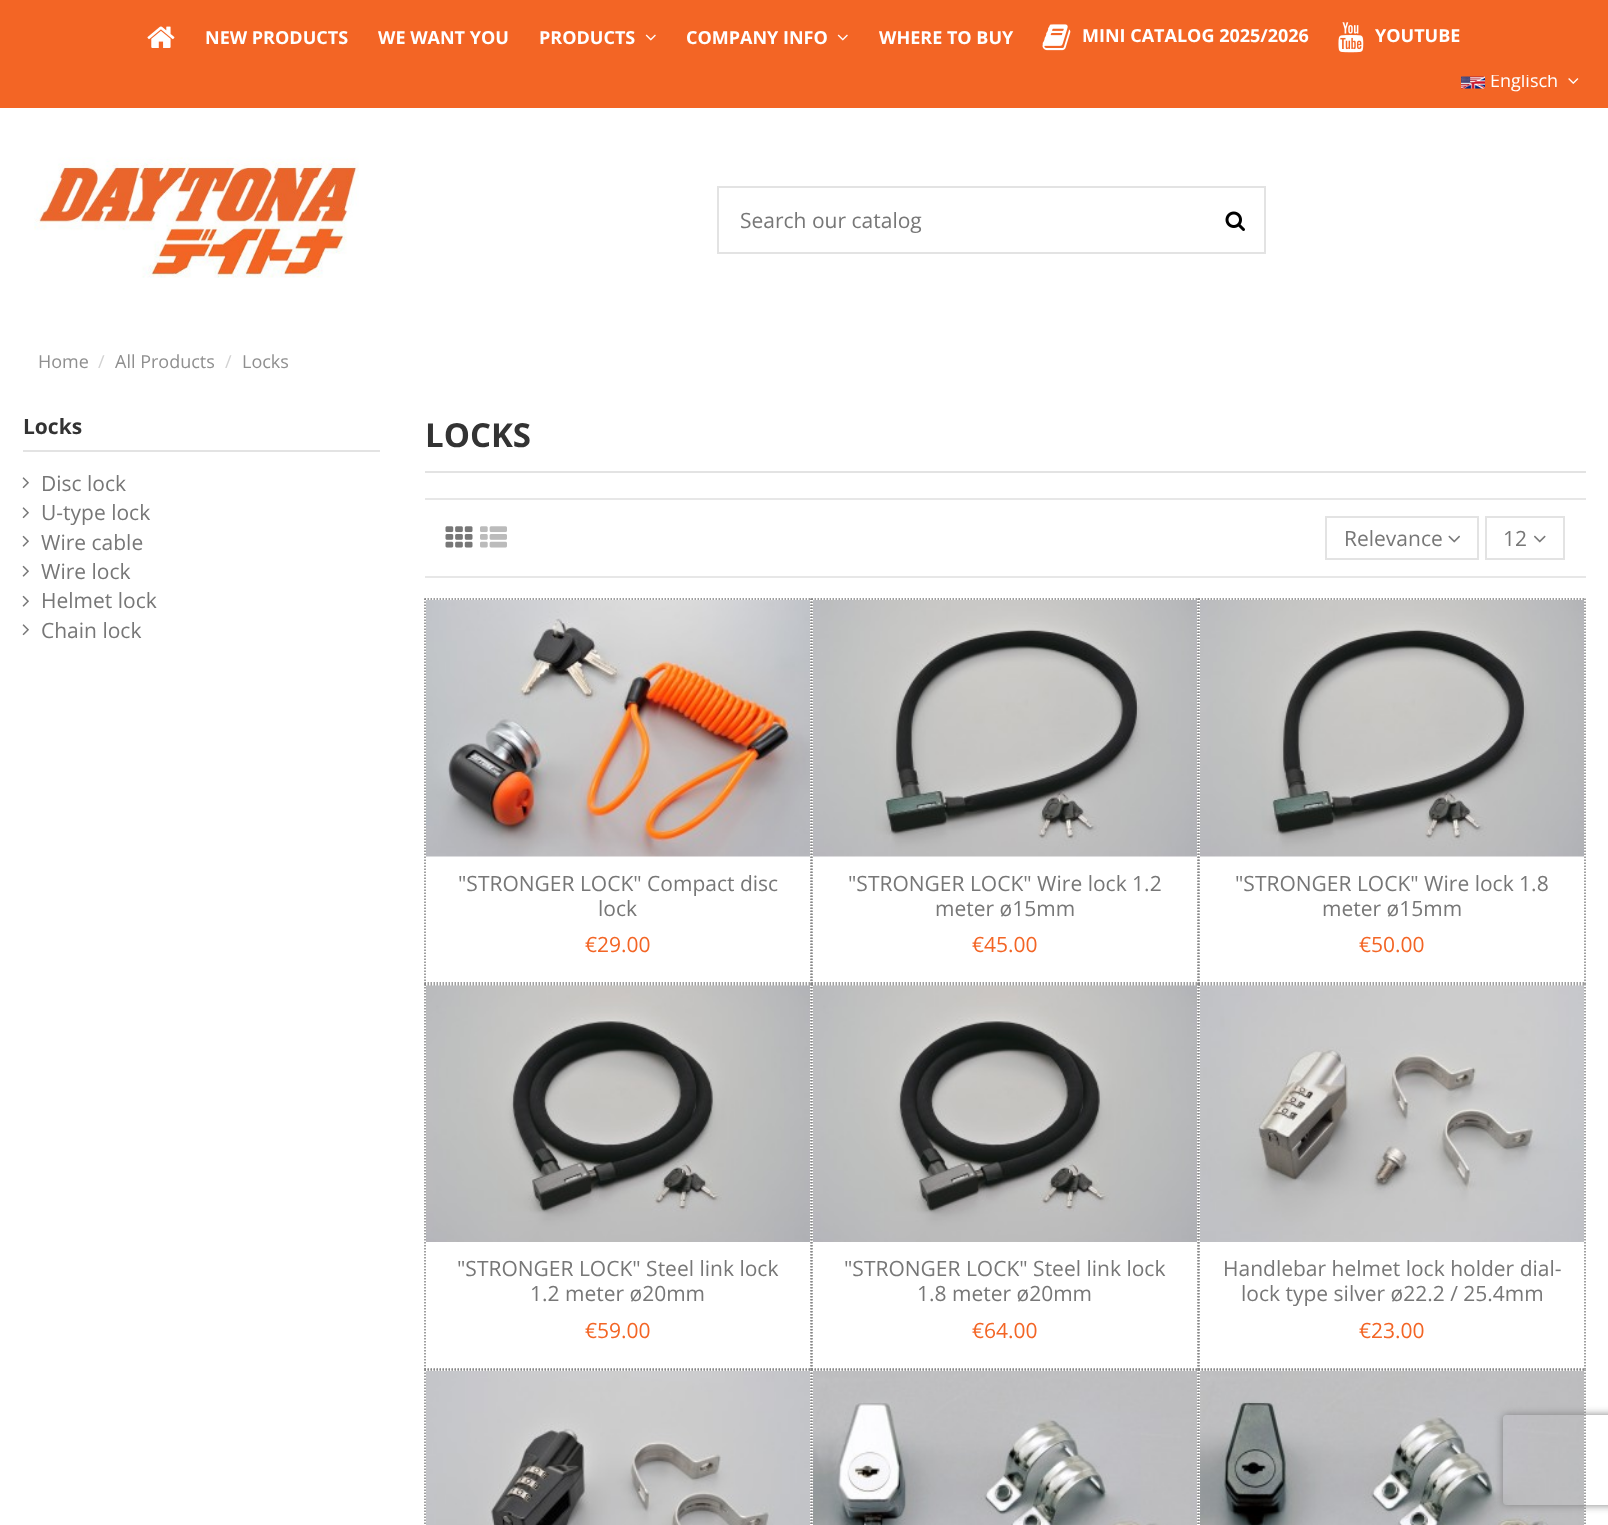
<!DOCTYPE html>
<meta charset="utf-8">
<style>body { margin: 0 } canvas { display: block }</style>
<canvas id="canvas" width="1608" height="1525"></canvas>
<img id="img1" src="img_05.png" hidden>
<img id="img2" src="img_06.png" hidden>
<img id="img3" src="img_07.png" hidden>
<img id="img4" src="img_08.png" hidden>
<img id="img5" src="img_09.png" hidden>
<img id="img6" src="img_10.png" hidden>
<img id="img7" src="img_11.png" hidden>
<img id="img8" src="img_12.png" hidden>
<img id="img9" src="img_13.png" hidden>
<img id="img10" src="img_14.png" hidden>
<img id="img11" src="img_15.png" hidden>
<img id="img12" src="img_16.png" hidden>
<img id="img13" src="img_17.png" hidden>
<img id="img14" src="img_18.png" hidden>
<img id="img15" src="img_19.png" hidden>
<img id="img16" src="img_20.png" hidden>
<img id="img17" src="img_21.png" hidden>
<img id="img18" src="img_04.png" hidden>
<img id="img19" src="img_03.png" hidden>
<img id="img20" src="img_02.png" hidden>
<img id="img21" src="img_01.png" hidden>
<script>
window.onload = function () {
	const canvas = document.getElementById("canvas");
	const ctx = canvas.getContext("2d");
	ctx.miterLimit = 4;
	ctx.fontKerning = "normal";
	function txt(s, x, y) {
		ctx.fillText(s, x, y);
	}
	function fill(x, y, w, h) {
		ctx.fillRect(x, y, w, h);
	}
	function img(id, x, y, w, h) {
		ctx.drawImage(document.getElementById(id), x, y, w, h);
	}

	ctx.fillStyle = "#FFFFFF";
	fill(0, 0, 1608, 1525);
	img("img1", 34, 157, 325, 121);
	ctx.strokeStyle = "#E3E3E3";
	ctx.lineWidth = 2;
	ctx.strokeRect(718, 187, 547, 66);
	img("img2", 1225, 211, 20, 20);
	ctx.fillStyle = "#F36525";
	fill(0, 75, 1608, 33);
	img("img3", 1461, 76, 24, 13);
	img("img4", 1568, 78, 11, 6);
	ctx.fillStyle = "#E3E3E3";
	fill(23, 450, 357, 2);
	img("img5", 22, 477, 7, 12);
	img("img5", 22, 507, 7, 12);
	img("img6", 22, 535, 7, 12);
	img("img6", 22, 565, 7, 12);
	img("img6", 22, 595, 7, 12);
	img("img5", 22, 624, 7, 12);
	fill(425, 471, 1161, 2);
	ctx.fillStyle = "#E7E7E7";
	fill(425, 498, 1161, 2);
	fill(425, 576, 1161, 2);
	img("img7", 445, 526, 28, 22);
	img("img8", 480, 526, 27, 22);
	ctx.strokeRect(1326, 517, 152, 42);
	img("img9", 1448, 535, 12, 8);
	ctx.strokeRect(1486, 517, 78, 42);
	img("img10", 1534, 535, 12, 8);
	ctx.beginPath();
	ctx.moveTo(424.5, 599);
	ctx.lineTo(811.5, 599);
	ctx.strokeStyle = "#808080";
	ctx.lineWidth = 1.5;
	ctx.setLineDash([1.5, 1.5]);
	ctx.stroke();
	ctx.beginPath();
	ctx.moveTo(811, 598.5);
	ctx.lineTo(811, 984);
	ctx.stroke();
	ctx.beginPath();
	ctx.moveTo(424.5, 983);
	ctx.lineTo(811.5, 983);
	ctx.stroke();
	ctx.beginPath();
	ctx.moveTo(425, 598.5);
	ctx.lineTo(425, 984);
	ctx.stroke();
	img("img11", 426, 600, 384, 257);
	ctx.beginPath();
	ctx.moveTo(811.5, 599);
	ctx.lineTo(1198.5, 599);
	ctx.stroke();
	ctx.beginPath();
	ctx.moveTo(1198, 598.5);
	ctx.lineTo(1198, 984);
	ctx.stroke();
	ctx.beginPath();
	ctx.moveTo(811.5, 983);
	ctx.lineTo(1198.5, 983);
	ctx.stroke();
	ctx.beginPath();
	ctx.moveTo(812, 598.5);
	ctx.lineTo(812, 984);
	ctx.stroke();
	img("img12", 813, 600, 384, 257);
	ctx.beginPath();
	ctx.moveTo(1198.5, 599);
	ctx.lineTo(1585.5, 599);
	ctx.stroke();
	ctx.beginPath();
	ctx.moveTo(1585, 598.5);
	ctx.lineTo(1585, 984);
	ctx.stroke();
	ctx.beginPath();
	ctx.moveTo(1198.5, 983);
	ctx.lineTo(1585.5, 983);
	ctx.stroke();
	ctx.beginPath();
	ctx.moveTo(1199, 598.5);
	ctx.lineTo(1199, 984);
	ctx.stroke();
	img("img12", 1200, 600, 384, 257);
	ctx.beginPath();
	ctx.moveTo(424.5, 985);
	ctx.lineTo(811.5, 985);
	ctx.stroke();
	ctx.beginPath();
	ctx.moveTo(811, 984);
	ctx.lineTo(811, 1369.5);
	ctx.stroke();
	ctx.beginPath();
	ctx.moveTo(424.5, 1369);
	ctx.lineTo(811.5, 1369);
	ctx.stroke();
	ctx.beginPath();
	ctx.moveTo(425, 984);
	ctx.lineTo(425, 1369.5);
	ctx.stroke();
	img("img13", 426, 985, 384, 257);
	ctx.beginPath();
	ctx.moveTo(811.5, 985);
	ctx.lineTo(1198.5, 985);
	ctx.stroke();
	ctx.beginPath();
	ctx.moveTo(1198, 984);
	ctx.lineTo(1198, 1369.5);
	ctx.stroke();
	ctx.beginPath();
	ctx.moveTo(811.5, 1369);
	ctx.lineTo(1198.5, 1369);
	ctx.stroke();
	ctx.beginPath();
	ctx.moveTo(812, 984);
	ctx.lineTo(812, 1369.5);
	ctx.stroke();
	img("img13", 813, 985, 384, 257);
	ctx.beginPath();
	ctx.moveTo(1198.5, 985);
	ctx.lineTo(1585.5, 985);
	ctx.stroke();
	ctx.beginPath();
	ctx.moveTo(1585, 984);
	ctx.lineTo(1585, 1369.5);
	ctx.stroke();
	ctx.beginPath();
	ctx.moveTo(1198.5, 1369);
	ctx.lineTo(1585.5, 1369);
	ctx.stroke();
	ctx.beginPath();
	ctx.moveTo(1199, 984);
	ctx.lineTo(1199, 1369.5);
	ctx.stroke();
	img("img14", 1200, 985, 384, 257);
	ctx.beginPath();
	ctx.moveTo(424.5, 1370);
	ctx.lineTo(811.5, 1370);
	ctx.stroke();
	ctx.beginPath();
	ctx.moveTo(811, 1369.5);
	ctx.lineTo(811, 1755);
	ctx.stroke();
	ctx.beginPath();
	ctx.moveTo(425, 1369.5);
	ctx.lineTo(425, 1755);
	ctx.stroke();
	img("img15", 426, 1371, 384, 154);
	ctx.beginPath();
	ctx.moveTo(811.5, 1370);
	ctx.lineTo(1198.5, 1370);
	ctx.stroke();
	ctx.beginPath();
	ctx.moveTo(1198, 1369.5);
	ctx.lineTo(1198, 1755);
	ctx.stroke();
	ctx.beginPath();
	ctx.moveTo(812, 1369.5);
	ctx.lineTo(812, 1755);
	ctx.stroke();
	img("img16", 813, 1371, 384, 154);
	ctx.beginPath();
	ctx.moveTo(1198.5, 1370);
	ctx.lineTo(1585.5, 1370);
	ctx.stroke();
	ctx.beginPath();
	ctx.moveTo(1585, 1369.5);
	ctx.lineTo(1585, 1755);
	ctx.stroke();
	ctx.beginPath();
	ctx.moveTo(1199, 1369.5);
	ctx.lineTo(1199, 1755);
	ctx.stroke();
	img("img17", 1200, 1371, 384, 154);
	ctx.save();
	ctx.beginPath();
	ctx.moveTo(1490, 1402);
	ctx.lineTo(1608, 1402);
	ctx.lineTo(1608, 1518);
	ctx.lineTo(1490, 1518);
	ctx.closePath();
	ctx.moveTo(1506, 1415);
	ctx.lineTo(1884, 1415);
	ctx.bezierCurveTo(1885.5, 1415, 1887, 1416.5, 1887, 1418);
	ctx.lineTo(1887, 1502);
	ctx.bezierCurveTo(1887, 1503.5, 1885.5, 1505, 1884, 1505);
	ctx.lineTo(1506, 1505);
	ctx.bezierCurveTo(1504.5, 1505, 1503, 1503.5, 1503, 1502);
	ctx.lineTo(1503, 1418);
	ctx.bezierCurveTo(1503, 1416.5, 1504.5, 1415, 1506, 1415);
	ctx.closePath();
	ctx.clip("evenodd");
	ctx.fillStyle = "#808080";
	ctx.filter = "blur(4px)";
	ctx.beginPath();
	ctx.roundRect(1503, 1415, 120, 90, 3);
	ctx.fill();
	ctx.filter = "none";
	ctx.restore();
	ctx.font = "21px Open Sans";
	ctx.fillStyle = "#777777";
	txt("Search our catalog", 740, 228);
	ctx.font = "18px Open Sans";
	ctx.fillStyle = "#FFFFFF";
	txt("Englisch", 1490, 87);
	ctx.fillStyle = "#F36525";
	fill(0, 0, 1608, 75);
	ctx.font = "bold 18px Open Sans";
	ctx.fillStyle = "#FFFFFF";
	txt("YOUTUBE", 1375, 42);
	img("img18", 1338, 22, 26, 31);
	txt("MINI CATALOG 2025/2026", 1082, 42);
	img("img19", 1042, 24, 29, 27);
	txt("WHERE TO BUY", 879, 44);
	img("img20", 837, 34, 11, 7);
	txt("COMPANY INFO", 686, 44);
	img("img20", 645, 34, 11, 7);
	txt("PRODUCTS", 539, 44);
	txt("WE WANT YOU", 378, 44);
	txt("NEW PRODUCTS", 205, 44);
	img("img21", 147, 26, 28, 22);
	ctx.font = "18px Open Sans";
	ctx.fillStyle = "#8F8F8F";
	txt("Home", 38, 368);
	ctx.fillStyle = "#D2D2D2";
	txt("/", 98, 368);
	ctx.fillStyle = "#8F8F8F";
	txt("All Products", 115, 368);
	ctx.fillStyle = "#D2D2D2";
	txt("/", 225, 368);
	ctx.fillStyle = "#8F8F8F";
	txt("Locks", 242, 368);
	ctx.font = "bold 21px Open Sans";
	ctx.fillStyle = "#333333";
	txt("Locks", 23, 434);
	ctx.font = "21px Open Sans";
	ctx.fillStyle = "#777777";
	txt("Disc lock", 41, 491);
	txt("U-type lock", 41, 520);
	txt("Wire cable", 41, 550);
	txt("Wire lock", 41, 579);
	txt("Helmet lock", 41, 608);
	txt("Chain lock", 41, 638);
	ctx.font = "bold 33px Open Sans";
	ctx.fillStyle = "#333333";
	txt("LOCKS", 425, 447);
	ctx.font = "21px Open Sans";
	ctx.fillStyle = "#777777";
	txt("Relevance", 1344, 546);
	txt("12", 1503, 546);
	txt("\"STRONGER LOCK\" Compact disc", 458, 891);
	txt("lock", 598, 916);
	ctx.fillStyle = "#F36525";
	txt("€29.00", 585, 952);
	ctx.fillStyle = "#777777";
	txt("\"STRONGER LOCK\" Wire lock 1.2", 848, 891);
	txt("meter ø15mm", 935, 916);
	ctx.fillStyle = "#F36525";
	txt("€45.00", 972, 952);
	ctx.fillStyle = "#777777";
	txt("\"STRONGER LOCK\" Wire lock 1.8", 1235, 891);
	txt("meter ø15mm", 1322, 916);
	ctx.fillStyle = "#F36525";
	txt("€50.00", 1359, 952);
	ctx.fillStyle = "#777777";
	txt("\"STRONGER LOCK\" Steel link lock", 457, 1276);
	txt("1.2 meter ø20mm", 530, 1301);
	ctx.fillStyle = "#F36525";
	txt("€59.00", 585, 1338);
	ctx.fillStyle = "#777777";
	txt("\"STRONGER LOCK\" Steel link lock", 844, 1276);
	txt("1.8 meter ø20mm", 917, 1301);
	ctx.fillStyle = "#F36525";
	txt("€64.00", 972, 1338);
	ctx.fillStyle = "#777777";
	txt("Handlebar helmet lock holder dial-", 1223, 1276);
	txt("lock type silver ø22.2 / 25.4mm", 1241, 1301);
	ctx.fillStyle = "#F36525";
	txt("€23.00", 1359, 1338);
};
</script>
